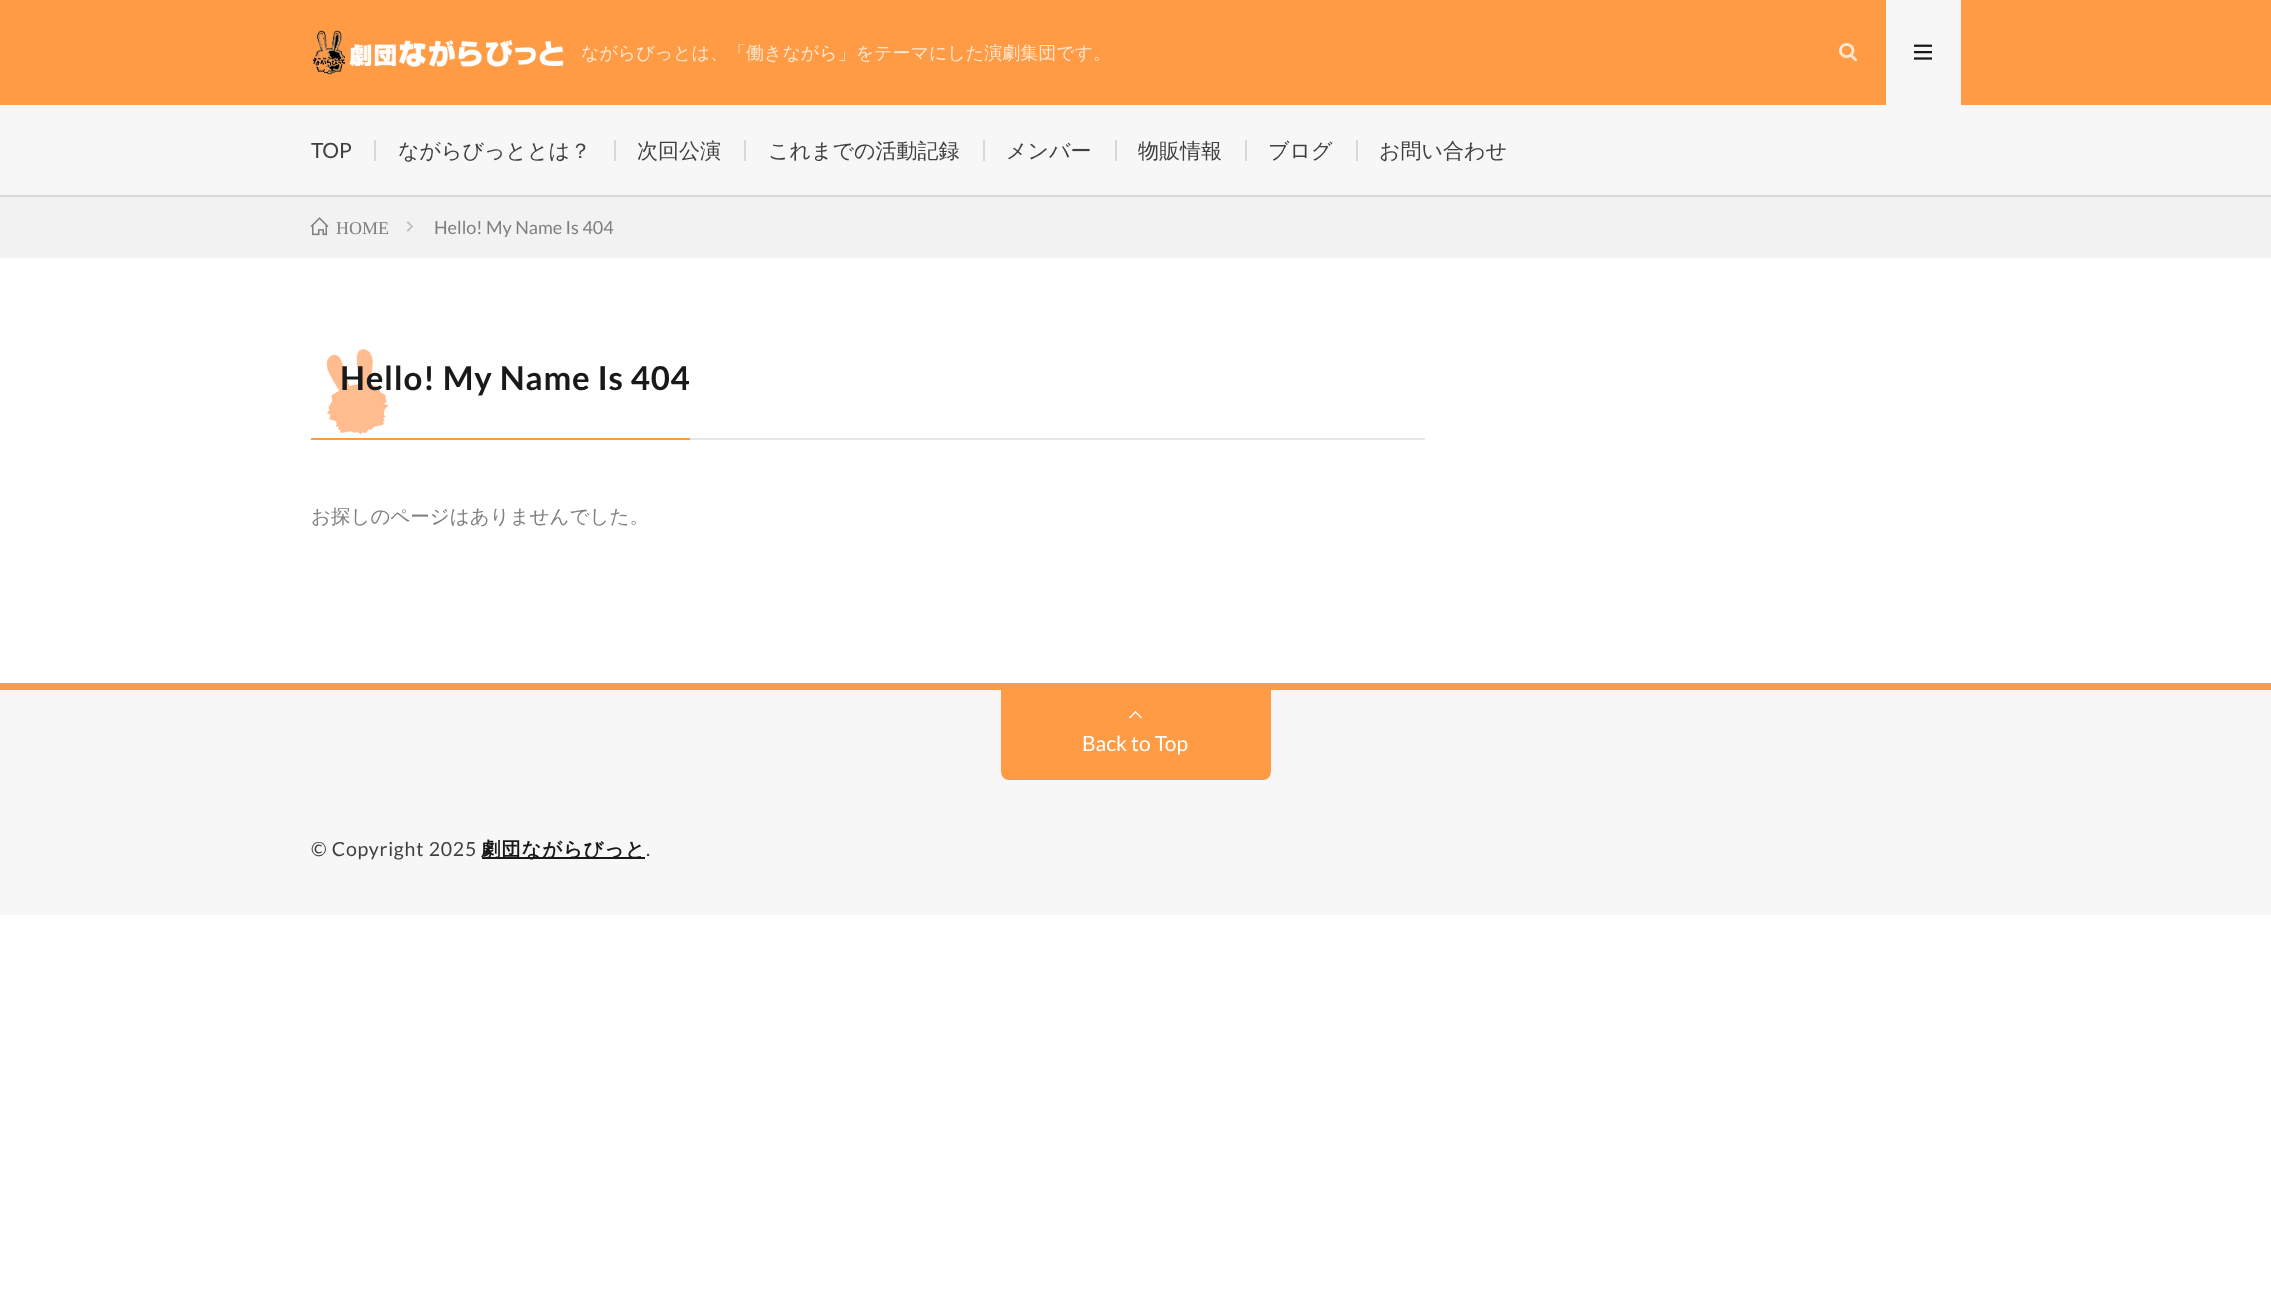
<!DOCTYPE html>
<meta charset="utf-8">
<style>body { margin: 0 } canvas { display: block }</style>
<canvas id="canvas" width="2271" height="1314"></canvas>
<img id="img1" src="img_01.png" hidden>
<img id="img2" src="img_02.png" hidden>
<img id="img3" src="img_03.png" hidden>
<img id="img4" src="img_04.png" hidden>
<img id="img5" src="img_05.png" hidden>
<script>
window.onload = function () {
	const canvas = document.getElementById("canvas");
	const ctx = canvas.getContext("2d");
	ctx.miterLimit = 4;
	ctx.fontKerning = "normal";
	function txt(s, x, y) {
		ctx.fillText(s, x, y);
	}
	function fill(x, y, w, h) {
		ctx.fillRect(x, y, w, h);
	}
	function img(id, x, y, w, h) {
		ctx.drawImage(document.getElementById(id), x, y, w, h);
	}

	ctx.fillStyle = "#FFFFFF";
	fill(0, 0, 2271, 1314);
	ctx.fillStyle = "#FF9B44";
	fill(0, 0, 2271, 105);
	img("img1", 312, 30, 252, 45);
	img("img2", 1839, 43, 18, 19);
	ctx.fillStyle = "#F7F7F7";
	fill(1886, 0, 75, 105);
	img("img3", 1914, 44, 18, 16);
	fill(0, 105, 2271, 90);
	ctx.fillStyle = "#D8D8D8";
	fill(0, 195, 2271, 2);
	fill(374, 140, 2, 21);
	fill(614, 140, 2, 21);
	fill(744, 140, 2, 21);
	fill(983, 140, 2, 21);
	fill(1115, 140, 2, 21);
	fill(1245, 140, 2, 21);
	fill(1356, 140, 2, 21);
	ctx.fillStyle = "#F2F2F2";
	fill(0, 197, 2271, 61);
	img("img4", 310, 217, 19, 19);
	ctx.fillStyle = "#BFBFBF";
	ctx.beginPath();
	ctx.moveTo(408, 221);
	ctx.lineTo(413, 226.5);
	ctx.lineTo(412, 227.5);
	ctx.lineTo(406.5, 222.5);
	ctx.closePath();
	ctx.fill();
	ctx.beginPath();
	ctx.moveTo(412, 225.5);
	ctx.lineTo(413, 226.5);
	ctx.lineTo(408, 232);
	ctx.lineTo(406.5, 230.5);
	ctx.closePath();
	ctx.fill();
	img("img5", 326, 349, 63, 86);
	ctx.fillStyle = "#FF9B44";
	fill(311, 438, 379, 2);
	ctx.fillStyle = "#E5E5E5";
	fill(690, 438, 735, 2);
	ctx.fillStyle = "#F7F7F7";
	fill(0, 690, 2271, 225);
	ctx.fillStyle = "#FF9B44";
	fill(0, 683, 2271, 7);
	ctx.beginPath();
	ctx.roundRect(1001, 690, 270, 90, [0, 0, 8, 8]);
	ctx.fill();
	ctx.fillStyle = "#FFFFFF";
	ctx.beginPath();
	ctx.moveTo(1135.5, 711);
	ctx.lineTo(1142, 717.5);
	ctx.lineTo(1141, 718.5);
	ctx.lineTo(1134.5, 712);
	ctx.closePath();
	ctx.fill();
	ctx.beginPath();
	ctx.moveTo(1135.5, 711);
	ctx.lineTo(1136.5, 712);
	ctx.lineTo(1130, 718.5);
	ctx.lineTo(1129, 717.5);
	ctx.closePath();
	ctx.fill();
	ctx.fillStyle = "#191919";
	fill(482, 857, 163, 2);
	ctx.font = "500 18px WenQuanYi Zen Hei";
	ctx.fillStyle = "#FFE6D0";
	txt("ながらびっとは、「働きながら」をテーマにした演劇集団です。", 581, 59);
	ctx.font = "21px Lato";
	ctx.fillStyle = "#3F3F3F";
	txt("TOP", 311, 158);
	ctx.font = "500 21px WenQuanYi Zen Hei";
	txt("ながらびっととは？", 398, 158);
	txt("次回公演", 637, 158);
	txt("これまでの活動記録", 768, 158);
	txt("メンバー", 1006, 158);
	txt("物販情報", 1138, 158);
	txt("ブログ", 1268, 158);
	txt("お問い合わせ", 1379, 158);
	ctx.font = "18px Liberation Serif";
	ctx.fillStyle = "#7F7F7F";
	txt("HOME", 336, 234);
	ctx.font = "18px Lato";
	txt("Hello! My Name Is 404", 434, 234);
	ctx.letterSpacing = "0.75px";
	ctx.font = "bold 33px Lato";
	ctx.fillStyle = "#191919";
	txt("Hello! My Name Is 404", 340, 390);
	ctx.letterSpacing = "0px";
	ctx.font = "500 19.5px WenQuanYi Zen Hei";
	ctx.fillStyle = "#7F7F7F";
	txt("お探しのページはありませんでした。", 311, 523);
	ctx.font = "21px Lato";
	ctx.fillStyle = "#FFFFFF";
	txt("Back to Top", 1082, 751);
	ctx.letterSpacing = "0.75px";
	ctx.font = "19.5px Lato";
	ctx.fillStyle = "#3F3F3F";
	txt("© Copyright 2025", 311, 856);
	ctx.font = "bold 19.5px WenQuanYi Zen Hei";
	ctx.fillStyle = "#191919";
	txt("劇団ながらびっと", 481, 856);
	ctx.font = "19.5px Lato";
	ctx.fillStyle = "#3F3F3F";
	txt(".", 646, 856);
};
</script>
